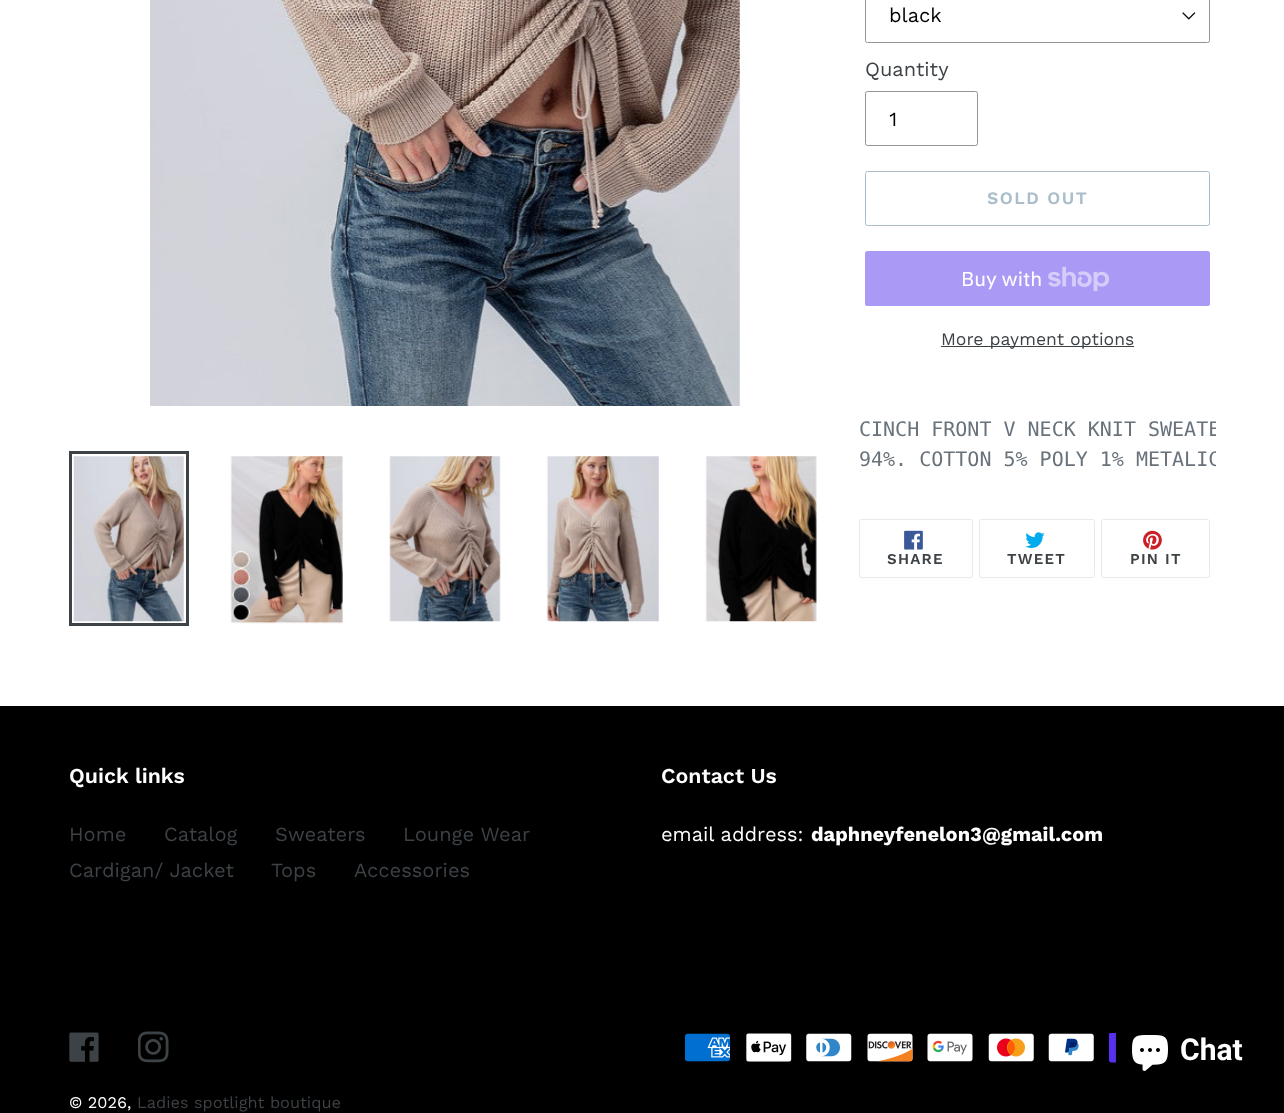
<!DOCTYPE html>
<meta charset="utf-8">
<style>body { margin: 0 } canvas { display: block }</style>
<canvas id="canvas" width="1284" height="1113"></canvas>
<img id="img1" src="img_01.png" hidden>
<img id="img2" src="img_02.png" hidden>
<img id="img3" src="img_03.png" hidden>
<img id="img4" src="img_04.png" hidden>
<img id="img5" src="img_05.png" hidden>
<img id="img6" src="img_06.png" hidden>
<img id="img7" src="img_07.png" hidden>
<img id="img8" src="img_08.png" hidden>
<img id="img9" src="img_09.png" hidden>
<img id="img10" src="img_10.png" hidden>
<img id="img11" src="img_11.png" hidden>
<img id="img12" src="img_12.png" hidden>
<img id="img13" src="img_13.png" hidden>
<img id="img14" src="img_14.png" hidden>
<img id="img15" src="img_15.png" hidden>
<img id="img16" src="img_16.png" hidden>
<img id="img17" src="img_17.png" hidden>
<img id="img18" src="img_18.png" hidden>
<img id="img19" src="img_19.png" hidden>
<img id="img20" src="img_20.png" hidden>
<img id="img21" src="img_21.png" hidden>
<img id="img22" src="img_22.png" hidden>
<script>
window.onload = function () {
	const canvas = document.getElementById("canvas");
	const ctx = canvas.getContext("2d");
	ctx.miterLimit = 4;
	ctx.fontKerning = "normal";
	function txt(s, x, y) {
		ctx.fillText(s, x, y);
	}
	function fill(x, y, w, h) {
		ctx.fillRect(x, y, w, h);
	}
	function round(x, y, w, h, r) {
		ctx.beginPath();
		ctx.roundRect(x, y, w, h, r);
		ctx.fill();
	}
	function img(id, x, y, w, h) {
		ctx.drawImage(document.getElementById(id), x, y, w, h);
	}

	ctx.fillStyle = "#FFFFFF";
	fill(0, 0, 1284, 1113);
	img("img1", 150, 0, 590, 406);
	ctx.strokeStyle = "#3D4246";
	ctx.lineWidth = 3;
	ctx.strokeRect(70.5, 452.5, 117, 172);
	img("img2", 73, 456, 111, 166);
	img("img3", 230, 456, 113, 168);
	img("img4", 389, 456, 112, 166);
	img("img5", 546, 456, 113, 166);
	img("img6", 705, 456, 112, 166);
	img("img7", 1182, 12, 14, 8);
	ctx.beginPath();
	ctx.roundRect(865.5, -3.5, 344, 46, 2);
	ctx.strokeStyle = "#949494";
	ctx.lineWidth = 1;
	ctx.stroke();
	ctx.beginPath();
	ctx.roundRect(865.5, 91.5, 112, 54, 2);
	ctx.stroke();
	ctx.beginPath();
	ctx.roundRect(865.5, 171.5, 344, 54, 2);
	ctx.strokeStyle = "#AABDCB";
	ctx.stroke();
	ctx.fillStyle = "#AA99F5";
	round(865, 251, 345, 55, 2.5);
	img("img8", 1048, 266, 62, 25);
	ctx.fillStyle = "#3D4246";
	fill(941, 346, 193, 1);
	ctx.beginPath();
	ctx.roundRect(859.5, 519.5, 113, 58, 2);
	ctx.strokeStyle = "#E8E9EB";
	ctx.stroke();
	img("img9", 904, 530, 19, 20);
	ctx.beginPath();
	ctx.roundRect(979.5, 519.5, 115, 58, 2);
	ctx.stroke();
	img("img10", 1025, 532, 20, 16);
	ctx.beginPath();
	ctx.roundRect(1101.5, 519.5, 108, 58, 2);
	ctx.stroke();
	img("img11", 1143, 530, 19, 20);
	ctx.fillStyle = "#000000";
	fill(0, 706, 1284, 407);
	img("img12", 69, 1032, 30, 30);
	img("img13", 138, 1031, 31, 32);
	img("img14", 685, 1033, 45, 29);
	img("img15", 746, 1033, 46, 29);
	img("img16", 806, 1033, 46, 29);
	img("img17", 867, 1033, 46, 29);
	img("img18", 927, 1033, 46, 29);
	img("img19", 988, 1033, 46, 29);
	img("img20", 1048, 1033, 46, 29);
	img("img21", 1109, 1033, 7, 30);
	ctx.fillStyle = "rgba(0, 0, 0, 0.15)";
	ctx.filter = "blur(3px)";
	ctx.beginPath();
	ctx.roundRect(1116, 1013, 142, 75, 20);
	ctx.fill();
	ctx.filter = "none";
	img("img22", 1132, 1035, 36, 36);
	ctx.font = "20px Work Sans";
	ctx.fillStyle = "#000000";
	txt("black", 889, 22);
	ctx.fillStyle = "#3D4246";
	txt("Quantity", 865, 76);
	ctx.fillStyle = "#000000";
	txt("1", 889, 126);
	ctx.letterSpacing = "1.5px";
	ctx.font = "600 17.5px Work Sans";
	ctx.fillStyle = "#AABDCB";
	txt("SOLD OUT", 987, 204);
	ctx.letterSpacing = "0px";
	ctx.font = "20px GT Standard";
	ctx.fillStyle = "#FFFFFF";
	txt("Buy with", 961, 286);
	ctx.font = "17.5px Work Sans";
	ctx.fillStyle = "#3D4246";
	txt("More payment options", 941, 345);
	ctx.save();
	ctx.beginPath();
	ctx.rect(859, 415, 357, 60);
	ctx.clip();
	ctx.font = "20px DejaVu Sans Mono";
	ctx.fillStyle = "#69727B";
	txt("CINCH FRONT V NECK KNIT SWEATE", 859, 436);
	txt("94%. COTTON 5% POLY 1% METALIC", 859, 466);
	ctx.restore();
	ctx.letterSpacing = "1.25px";
	ctx.font = "600 15px Work Sans";
	txt("SHARE", 887, 564);
	txt("TWEET", 1007, 564);
	txt("PIN IT", 1130, 564);
	ctx.letterSpacing = "0px";
	ctx.font = "600 21.25px Work Sans";
	ctx.fillStyle = "#FFFFFF";
	txt("Quick links", 69, 783);
	ctx.font = "20px Work Sans";
	ctx.fillStyle = "#3D4246";
	txt("Home", 69, 841);
	txt("Catalog", 164, 841);
	txt("Sweaters", 275, 841);
	txt("Lounge Wear", 403, 841);
	txt("Cardigan/ Jacket", 69, 877);
	txt("Tops", 271, 877);
	txt("Accessories", 354, 877);
	ctx.font = "600 21.25px Work Sans";
	ctx.fillStyle = "#FFFFFF";
	txt("Contact Us", 661, 783);
	ctx.font = "20px Work Sans";
	txt("email address:", 661, 841);
	ctx.font = "bold 20px Work Sans";
	txt("daphneyfenelon3@gmail.com", 811, 841);
	ctx.font = "16.25px Work Sans";
	txt("© 2026,", 69, 1108);
	ctx.fillStyle = "#3D4246";
	txt("Ladies spotlight boutique", 137, 1108);
	ctx.font = "bold 30px Roboto";
	ctx.fillStyle = "#FFFFFF";
	txt("Chat", 1180, 1060);
};
</script>
